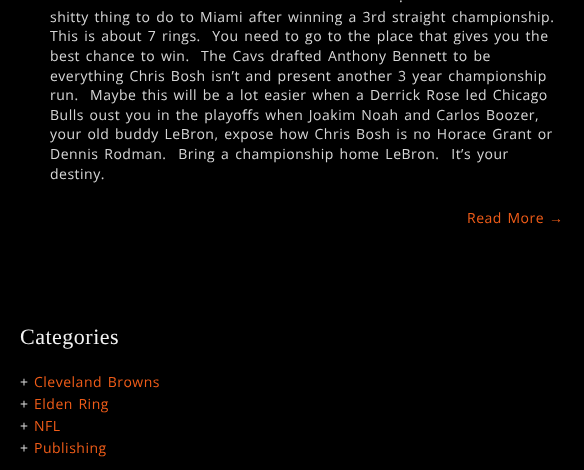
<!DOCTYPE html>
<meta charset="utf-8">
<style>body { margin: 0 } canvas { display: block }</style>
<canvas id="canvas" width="584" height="470"></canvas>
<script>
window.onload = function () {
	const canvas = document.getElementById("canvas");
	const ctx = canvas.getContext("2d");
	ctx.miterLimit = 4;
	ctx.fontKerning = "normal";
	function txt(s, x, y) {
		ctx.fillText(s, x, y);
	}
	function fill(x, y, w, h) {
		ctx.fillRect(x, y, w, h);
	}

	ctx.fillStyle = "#000000";
	fill(0, 0, 584, 470);
	ctx.letterSpacing = "0.5px";
	ctx.wordSpacing = "1.6px";
	ctx.font = "14px Open Sans";
	ctx.fillStyle = "#D6D6D6";
	txt(".", 399, 2);
	txt("shitty thing to do to Miami after winning a 3rd straight championship.", 50, 22);
	txt("This is about 7 rings.  You need to go to the place that gives you the", 50, 41);
	txt("best chance to win.  The Cavs drafted Anthony Bennett to be", 50, 61);
	ctx.wordSpacing = "1.5px";
	txt("everything Chris Bosh isn’t and present another 3 year championship", 50, 81);
	ctx.wordSpacing = "1.6px";
	txt("run.  Maybe this will be a lot easier when a Derrick Rose led Chicago", 50, 100);
	ctx.wordSpacing = "1.5px";
	txt("Bulls oust you in the playoffs when Joakim Noah and Carlos Boozer,", 50, 120);
	txt("your old buddy LeBron, expose how Chris Bosh is no Horace Grant or", 50, 139);
	ctx.wordSpacing = "1.75px";
	txt("Dennis Rodman.  Bring a championship home LeBron.  It’s your", 50, 159);
	ctx.wordSpacing = "0px";
	txt("destiny.", 50, 179);
	ctx.wordSpacing = "1.5px";
	ctx.fillStyle = "#F05C18";
	txt("Read More", 467, 223);
	ctx.wordSpacing = "0px";
	ctx.font = "14px Liberation Sans";
	txt("→", 549, 223);
	ctx.font = "22px Liberation Serif";
	ctx.fillStyle = "#F2F2F2";
	txt("Categories", 20, 344);
	ctx.font = "14px Open Sans";
	ctx.fillStyle = "#D6D6D6";
	txt("+", 20, 387);
	ctx.wordSpacing = "1.5px";
	ctx.fillStyle = "#F05C18";
	txt("Cleveland Browns", 34, 387);
	ctx.wordSpacing = "0px";
	ctx.fillStyle = "#D6D6D6";
	txt("+", 20, 409);
	ctx.wordSpacing = "1.5px";
	ctx.fillStyle = "#F05C18";
	txt("Elden Ring", 34, 409);
	ctx.wordSpacing = "0px";
	ctx.fillStyle = "#D6D6D6";
	txt("+", 20, 431);
	ctx.fillStyle = "#F05C18";
	txt("NFL", 34, 431);
	ctx.fillStyle = "#D6D6D6";
	txt("+", 20, 453);
	ctx.fillStyle = "#F05C18";
	txt("Publishing", 34, 453);
};
</script>
